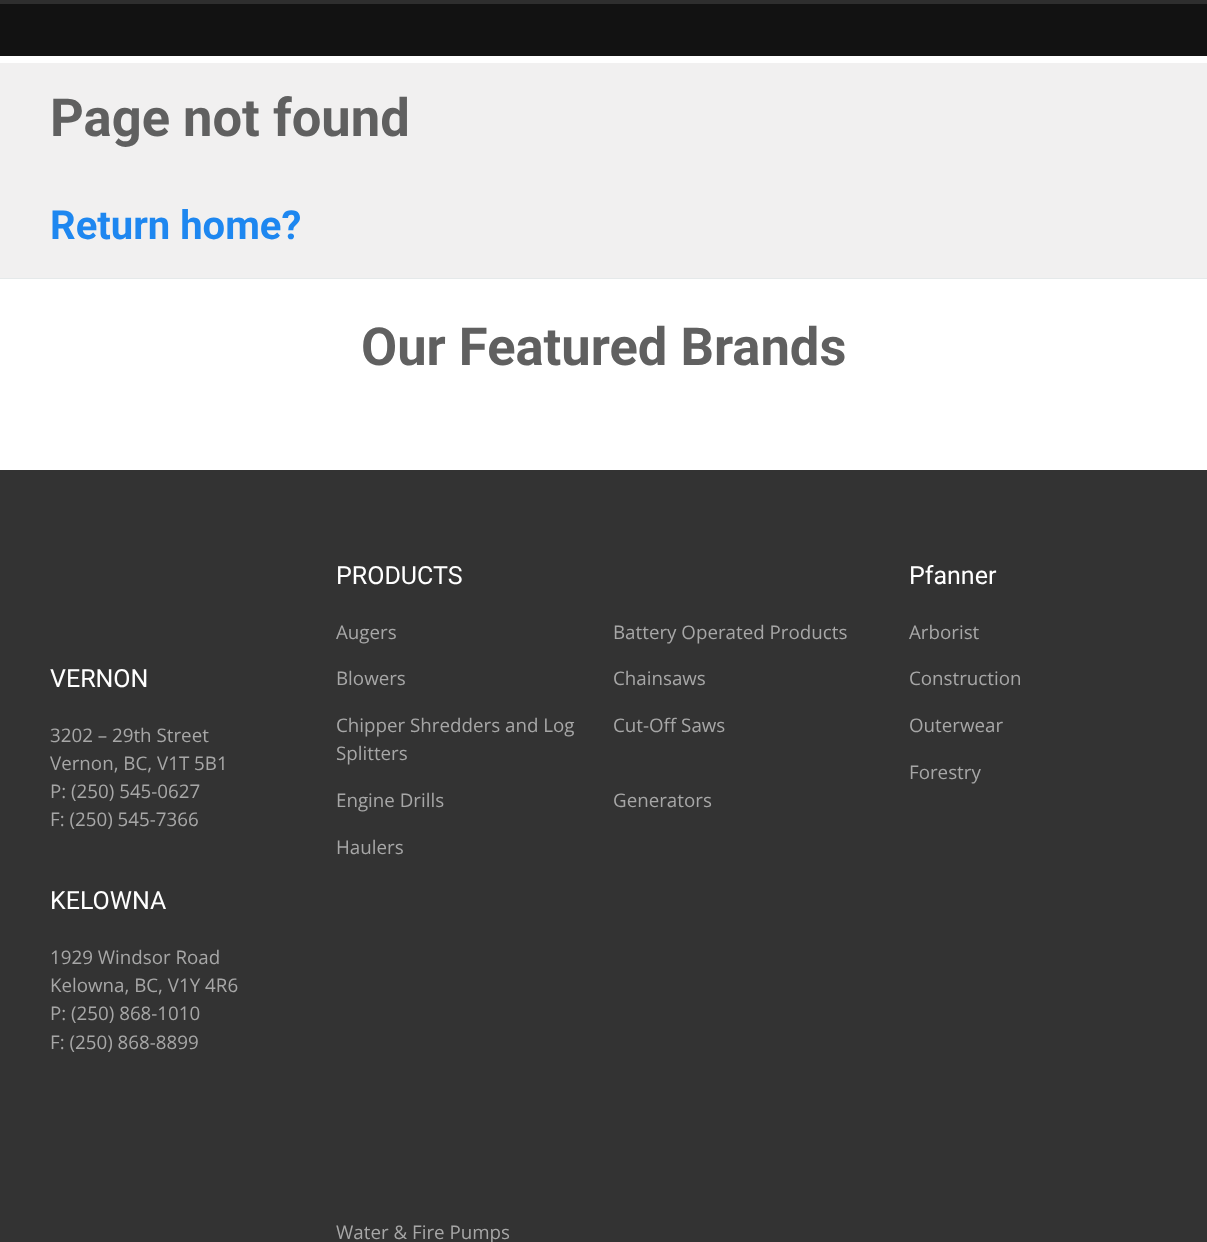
<!DOCTYPE html>
<meta charset="utf-8">
<style>body { margin: 0 } canvas { display: block }</style>
<canvas id="canvas" width="1207" height="1242"></canvas>
<script>
window.onload = function () {
	const canvas = document.getElementById("canvas");
	const ctx = canvas.getContext("2d");
	ctx.miterLimit = 4;
	ctx.fontKerning = "normal";
	function txt(s, x, y) {
		ctx.fillText(s, x, y);
	}
	function fill(x, y, w, h) {
		ctx.fillRect(x, y, w, h);
	}

	ctx.fillStyle = "#F1F0F0";
	fill(0, 0, 1207, 1242);
	ctx.fillStyle = "#121212";
	fill(0, 4, 1207, 52);
	ctx.fillStyle = "#FFFFFF";
	fill(0, 56, 1207, 7);
	ctx.fillStyle = "#2E2E2E";
	fill(0, 0, 1207, 4);
	ctx.fillStyle = "#FFFFFF";
	fill(0, 279, 1207, 191);
	ctx.fillStyle = "#E5E9EA";
	fill(0, 278, 1207, 1);
	ctx.fillStyle = "#333333";
	fill(0, 470, 1207, 772);
	ctx.font = "bold 52.5px Roboto";
	ctx.fillStyle = "#606060";
	txt("Page not found", 50, 136);
	ctx.font = "bold 40px Roboto";
	ctx.fillStyle = "#1E87F0";
	txt("Return home?", 50, 239);
	ctx.font = "bold 52.5px Roboto";
	ctx.fillStyle = "#606060";
	txt("Our Featured Brands", 361, 365);
	ctx.font = "25px Roboto";
	ctx.fillStyle = "#FFFFFF";
	txt("VERNON", 50, 687);
	ctx.font = "18.75px Open Sans";
	ctx.fillStyle = "#A7A7A7";
	txt("3202 – 29th Street", 50, 742);
	txt("Vernon, BC, V1T 5B1", 50, 770);
	txt("P: (250) 545-0627", 50, 798);
	txt("F: (250) 545-7366", 50, 826);
	ctx.font = "25px Roboto";
	ctx.fillStyle = "#FFFFFF";
	txt("KELOWNA", 50, 909);
	ctx.font = "18.75px Open Sans";
	ctx.fillStyle = "#A7A7A7";
	txt("1929 Windsor Road", 50, 964);
	txt("Kelowna, BC, V1Y 4R6", 50, 992);
	txt("P: (250) 868-1010", 50, 1020);
	txt("F: (250) 868-8899", 50, 1049);
	ctx.font = "25px Roboto";
	ctx.fillStyle = "#FFFFFF";
	txt("PRODUCTS", 336, 584);
	ctx.font = "18.75px Open Sans";
	ctx.fillStyle = "#A7A7A7";
	txt("Augers", 336, 639);
	txt("Battery Operated Products", 613, 639);
	txt("Blowers", 336, 685);
	txt("Chainsaws", 613, 685);
	txt("Chipper Shredders and Log", 336, 732);
	txt("Splitters", 336, 760);
	txt("Cut-Off Saws", 613, 732);
	txt("Engine Drills", 336, 807);
	txt("Generators", 613, 807);
	txt("Haulers", 336, 854);
	txt("Water & Fire Pumps", 336, 1239);
	ctx.font = "25px Roboto";
	ctx.fillStyle = "#FFFFFF";
	txt("Pfanner", 909, 584);
	ctx.font = "18.75px Open Sans";
	ctx.fillStyle = "#A7A7A7";
	txt("Arborist", 909, 639);
	txt("Construction", 909, 685);
	txt("Outerwear", 909, 732);
	txt("Forestry", 909, 779);
};
</script>
